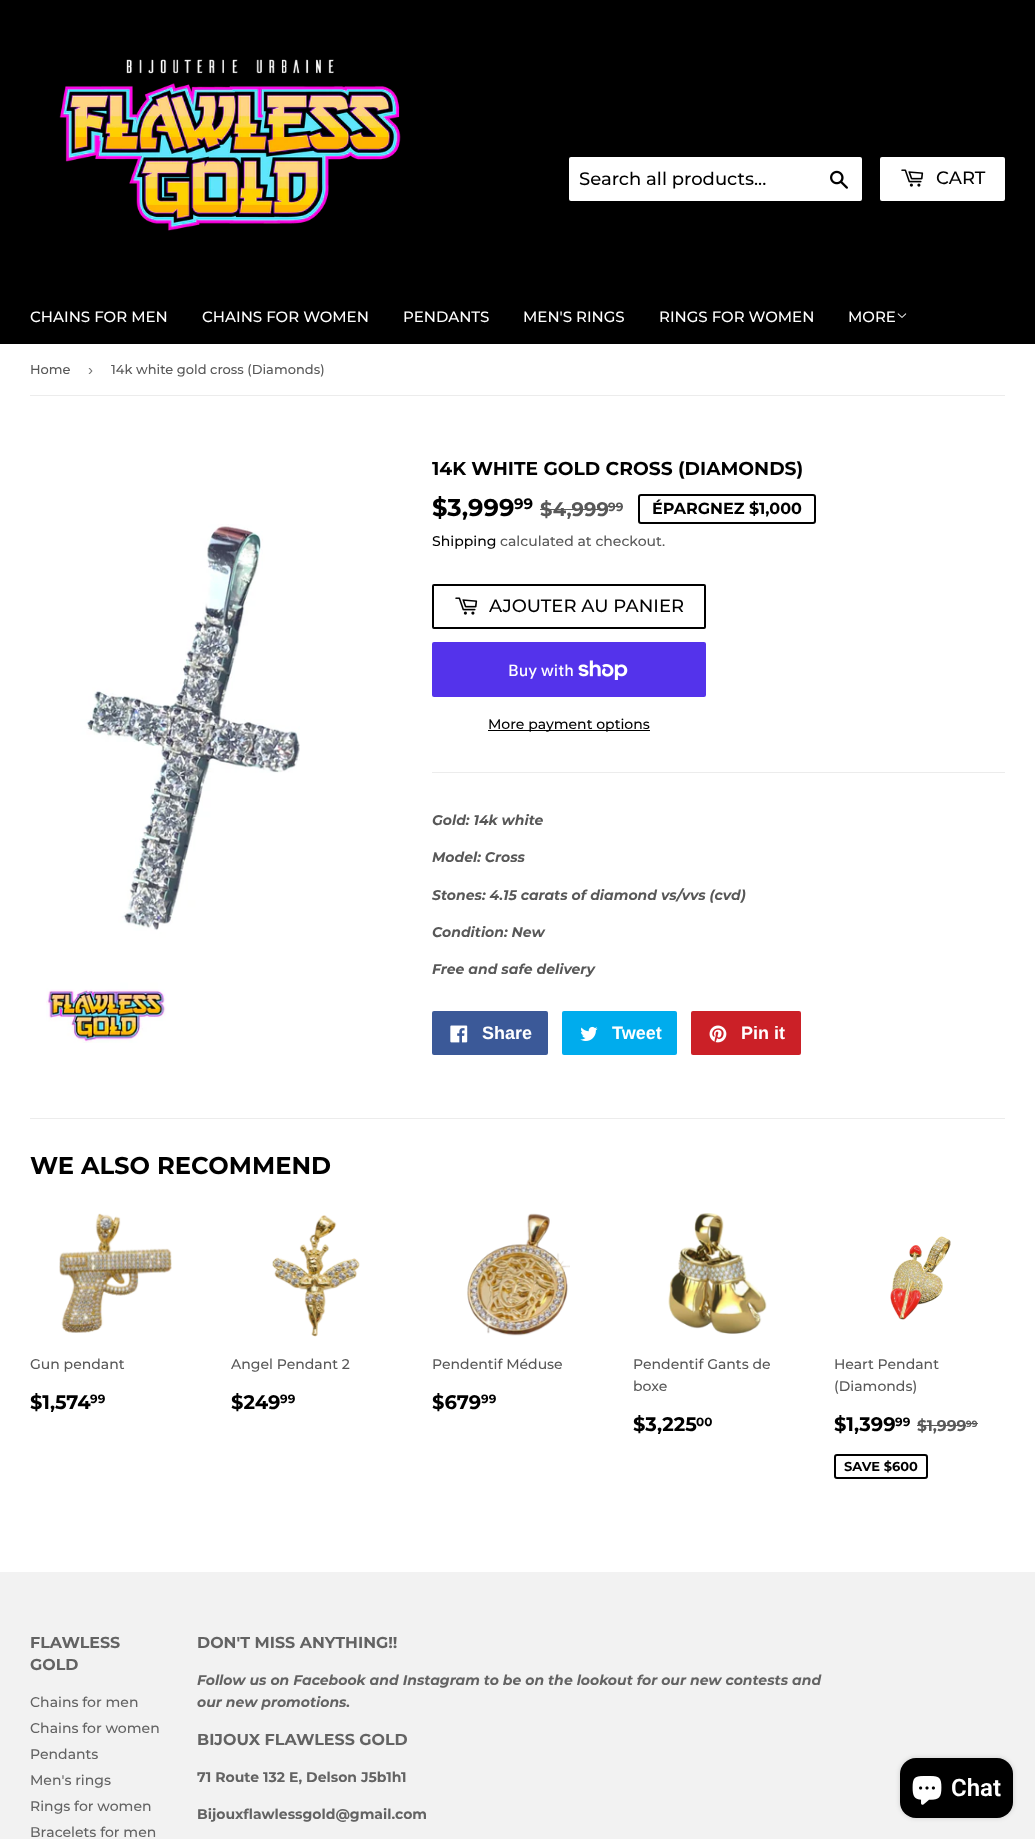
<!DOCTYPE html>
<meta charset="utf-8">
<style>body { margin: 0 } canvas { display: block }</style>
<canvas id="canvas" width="1035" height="1839"></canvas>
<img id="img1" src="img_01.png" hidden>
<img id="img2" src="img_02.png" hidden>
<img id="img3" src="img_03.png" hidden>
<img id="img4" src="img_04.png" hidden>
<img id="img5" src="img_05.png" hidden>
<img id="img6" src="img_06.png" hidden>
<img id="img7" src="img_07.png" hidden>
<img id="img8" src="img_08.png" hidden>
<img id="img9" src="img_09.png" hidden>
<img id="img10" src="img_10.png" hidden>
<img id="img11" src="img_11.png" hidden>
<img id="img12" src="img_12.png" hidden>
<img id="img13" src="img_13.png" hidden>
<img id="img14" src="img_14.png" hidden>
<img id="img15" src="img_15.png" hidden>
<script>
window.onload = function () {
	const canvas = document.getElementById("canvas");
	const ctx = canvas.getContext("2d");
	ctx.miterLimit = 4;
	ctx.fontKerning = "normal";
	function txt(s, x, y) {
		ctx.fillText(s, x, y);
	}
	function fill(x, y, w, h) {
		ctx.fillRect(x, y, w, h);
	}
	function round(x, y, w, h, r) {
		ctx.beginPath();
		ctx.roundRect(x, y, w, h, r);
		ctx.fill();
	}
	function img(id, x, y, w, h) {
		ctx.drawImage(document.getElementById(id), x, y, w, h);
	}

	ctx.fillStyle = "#FFFFFF";
	fill(0, 0, 1035, 1839);
	ctx.fillStyle = "#000000";
	fill(0, 0, 1035, 344);
	img("img1", 59, 59, 342, 172);
	ctx.fillStyle = "#FFFFFF";
	round(569, 157, 293, 44, 2);
	img("img2", 830, 170, 18, 19);
	round(880, 157, 125, 44, 2);
	img("img3", 901, 169, 23, 18);
	img("img4", 897, 313, 10, 5);
	ctx.fillStyle = "#ECECEC";
	fill(30, 395, 975, 1);
	img("img5", 46, 524, 254, 519);
	ctx.fillStyle = "#585858";
	fill(540, 509, 68, 1);
	fill(608, 506, 15, 1);
	ctx.beginPath();
	ctx.roundRect(639, 495, 176, 28, 2);
	ctx.strokeStyle = "#000000";
	ctx.lineWidth = 2;
	ctx.stroke();
	ctx.beginPath();
	ctx.roundRect(433, 585, 272, 43, 1);
	ctx.stroke();
	img("img3", 455, 597, 23, 18);
	ctx.fillStyle = "#5433EB";
	round(432, 642, 274, 55, 2);
	img("img6", 578, 660, 50, 20);
	ctx.fillStyle = "#000000";
	fill(488, 730, 162, 1);
	ctx.fillStyle = "#ECECEC";
	fill(432, 772, 573, 1);
	ctx.fillStyle = "#3B5998";
	round(432, 1011, 116, 44, 2);
	img("img7", 450, 1025, 18, 18);
	ctx.fillStyle = "#00ACED";
	round(562, 1011, 115, 44, 2);
	img("img8", 580, 1026, 18, 15);
	ctx.fillStyle = "#CB2027";
	round(691, 1011, 110, 44, 2);
	img("img9", 709, 1025, 18, 18);
	ctx.fillStyle = "#ECECEC";
	fill(30, 1118, 975, 1);
	img("img10", 59, 1213, 113, 120);
	img("img11", 272, 1215, 88, 122);
	img("img12", 467, 1213, 103, 123);
	img("img13", 668, 1213, 99, 121);
	img("img14", 890, 1236, 61, 84);
	ctx.fillStyle = "#585858";
	fill(917, 1425, 49, 1);
	fill(966, 1423, 12, 1);
	ctx.beginPath();
	ctx.roundRect(835, 1455, 92, 23, 2);
	ctx.stroke();
	ctx.fillStyle = "#F2F2F2";
	fill(0, 1572, 1035, 267);
	ctx.fillStyle = "rgba(0, 0, 0, 0.15)";
	ctx.filter = "blur(2.5px)";
	ctx.beginPath();
	ctx.roundRect(900, 1758, 113, 60, 16);
	ctx.fill();
	ctx.filter = "none";
	ctx.fillStyle = "#000000";
	round(900, 1758, 113, 60, 16);
	img("img15", 912, 1776, 30, 29);
	ctx.font = "500 18px Montserrat";
	txt("Search all products...", 579, 185);
	txt("CART", 936, 184);
	ctx.font = "500 15px Montserrat";
	ctx.fillStyle = "#FFFFFF";
	txt("CHAINS FOR MEN", 30, 322);
	txt("CHAINS FOR WOMEN", 202, 322);
	txt("PENDANTS", 403, 322);
	txt("MEN'S RINGS", 523, 322);
	txt("RINGS FOR WOMEN", 659, 322);
	txt("MORE", 848, 322);
	ctx.font = "500 13px Montserrat";
	ctx.fillStyle = "#585858";
	txt("Home", 30, 374);
	ctx.font = "15px Liberation Sans";
	ctx.fillStyle = "#767676";
	txt("›", 88, 375);
	ctx.font = "500 13px Montserrat";
	ctx.fillStyle = "#585858";
	txt("14k white gold cross (Diamonds)", 111, 374);
	ctx.font = "bold 18.7px Montserrat";
	ctx.fillStyle = "#000000";
	txt("14K WHITE GOLD CROSS (DIAMONDS)", 432, 475);
	ctx.font = "bold 24.25px Montserrat";
	txt("$3,999", 432, 516);
	ctx.font = "bold 15px Montserrat";
	txt("99", 514, 509);
	ctx.font = "bold 19.5px Montserrat";
	ctx.fillStyle = "#585858";
	txt("$4,999", 540, 516);
	ctx.font = "bold 12px Montserrat";
	txt("99", 608, 511);
	ctx.font = "bold 16px Montserrat";
	ctx.fillStyle = "#000000";
	txt("ÉPARGNEZ $1,000", 652, 514);
	ctx.font = "500 14px Montserrat";
	txt("Shipping", 432, 546);
	ctx.fillStyle = "#585858";
	txt("calculated at checkout.", 500, 546);
	ctx.font = "500 18px Montserrat";
	ctx.fillStyle = "#000000";
	txt("AJOUTER AU PANIER", 489, 612);
	ctx.font = "500 16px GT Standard";
	ctx.fillStyle = "#FFFFFF";
	txt("Buy with", 508, 676);
	ctx.font = "500 14px Montserrat";
	ctx.fillStyle = "#000000";
	txt("More payment options", 488, 729);
	ctx.font = "italic bold 14px Montserrat";
	ctx.fillStyle = "#585858";
	txt("Gold: 14k white", 432, 825);
	txt("Model: Cross", 432, 862);
	txt("Stones: 4.15 carats of diamond vs/vvs (cvd)", 432, 900);
	txt("Condition: New", 432, 937);
	txt("Free and safe delivery", 432, 974);
	ctx.font = "bold 18px Liberation Sans";
	ctx.fillStyle = "#FFFFFF";
	txt("Share", 482, 1039);
	txt("Tweet", 612, 1039);
	txt("Pin it", 741, 1039);
	ctx.font = "bold 24.25px Montserrat";
	ctx.fillStyle = "#000000";
	txt("WE ALSO RECOMMEND", 30, 1174);
	ctx.font = "500 14px Montserrat";
	ctx.fillStyle = "#585858";
	txt("Gun pendant", 30, 1369);
	ctx.font = "bold 19.5px Montserrat";
	ctx.fillStyle = "#000000";
	txt("$1,574", 30, 1409);
	ctx.font = "bold 12px Montserrat";
	txt("99", 90, 1403);
	ctx.font = "500 14px Montserrat";
	ctx.fillStyle = "#585858";
	txt("Angel Pendant 2", 231, 1369);
	ctx.font = "bold 19.5px Montserrat";
	ctx.fillStyle = "#000000";
	txt("$249", 231, 1409);
	ctx.font = "bold 12px Montserrat";
	txt("99", 280, 1403);
	ctx.font = "500 14px Montserrat";
	ctx.fillStyle = "#585858";
	txt("Pendentif Méduse", 432, 1369);
	ctx.font = "bold 19.5px Montserrat";
	ctx.fillStyle = "#000000";
	txt("$679", 432, 1409);
	ctx.font = "bold 12px Montserrat";
	txt("99", 481, 1403);
	ctx.font = "500 14px Montserrat";
	ctx.fillStyle = "#585858";
	txt("Pendentif Gants de", 633, 1369);
	txt("boxe", 633, 1391);
	ctx.font = "bold 19.5px Montserrat";
	ctx.fillStyle = "#000000";
	txt("$3,225", 633, 1431);
	ctx.font = "bold 12px Montserrat";
	txt("00", 696, 1426);
	ctx.font = "500 14px Montserrat";
	ctx.fillStyle = "#585858";
	txt("Heart Pendant", 834, 1369);
	txt("(Diamonds)", 834, 1391);
	ctx.font = "bold 19.5px Montserrat";
	ctx.fillStyle = "#000000";
	txt("$1,399", 834, 1431);
	ctx.font = "bold 12px Montserrat";
	txt("99", 895, 1426);
	ctx.font = "bold 15.5px Montserrat";
	ctx.fillStyle = "#585858";
	txt("$1,999", 917, 1431);
	ctx.font = "bold 9px Montserrat";
	txt("99", 966, 1427);
	ctx.font = "bold 13px Montserrat";
	ctx.fillStyle = "#000000";
	txt("SAVE $600", 844, 1471);
	ctx.font = "bold 15.9px Montserrat";
	ctx.fillStyle = "#636363";
	txt("FLAWLESS", 30, 1648);
	txt("GOLD", 30, 1670);
	ctx.font = "500 14px Montserrat";
	txt("Chains for men", 30, 1707);
	txt("Chains for women", 30, 1733);
	txt("Pendants", 30, 1759);
	txt("Men's rings", 30, 1785);
	txt("Rings for women", 30, 1811);
	txt("Bracelets for men", 30, 1837);
	ctx.font = "bold 15.9px Montserrat";
	txt("DON'T MISS ANYTHING!!", 197, 1648);
	ctx.font = "italic bold 14px Montserrat";
	txt("Follow us on Facebook and Instagram to be on the lookout for our new contests and", 197, 1685);
	txt("our new promotions.", 197, 1707);
	ctx.font = "bold 15.9px Montserrat";
	txt("BIJOUX FLAWLESS GOLD", 197, 1745);
	ctx.font = "bold 14px Montserrat";
	txt("71 Route 132 E, Delson J5b1h1", 197, 1782);
	txt("Bijouxflawlessgold@gmail.com", 197, 1819);
	ctx.font = "600 24px Roboto";
	ctx.fillStyle = "#FFFFFF";
	txt("Chat", 951, 1796);
};
</script>
